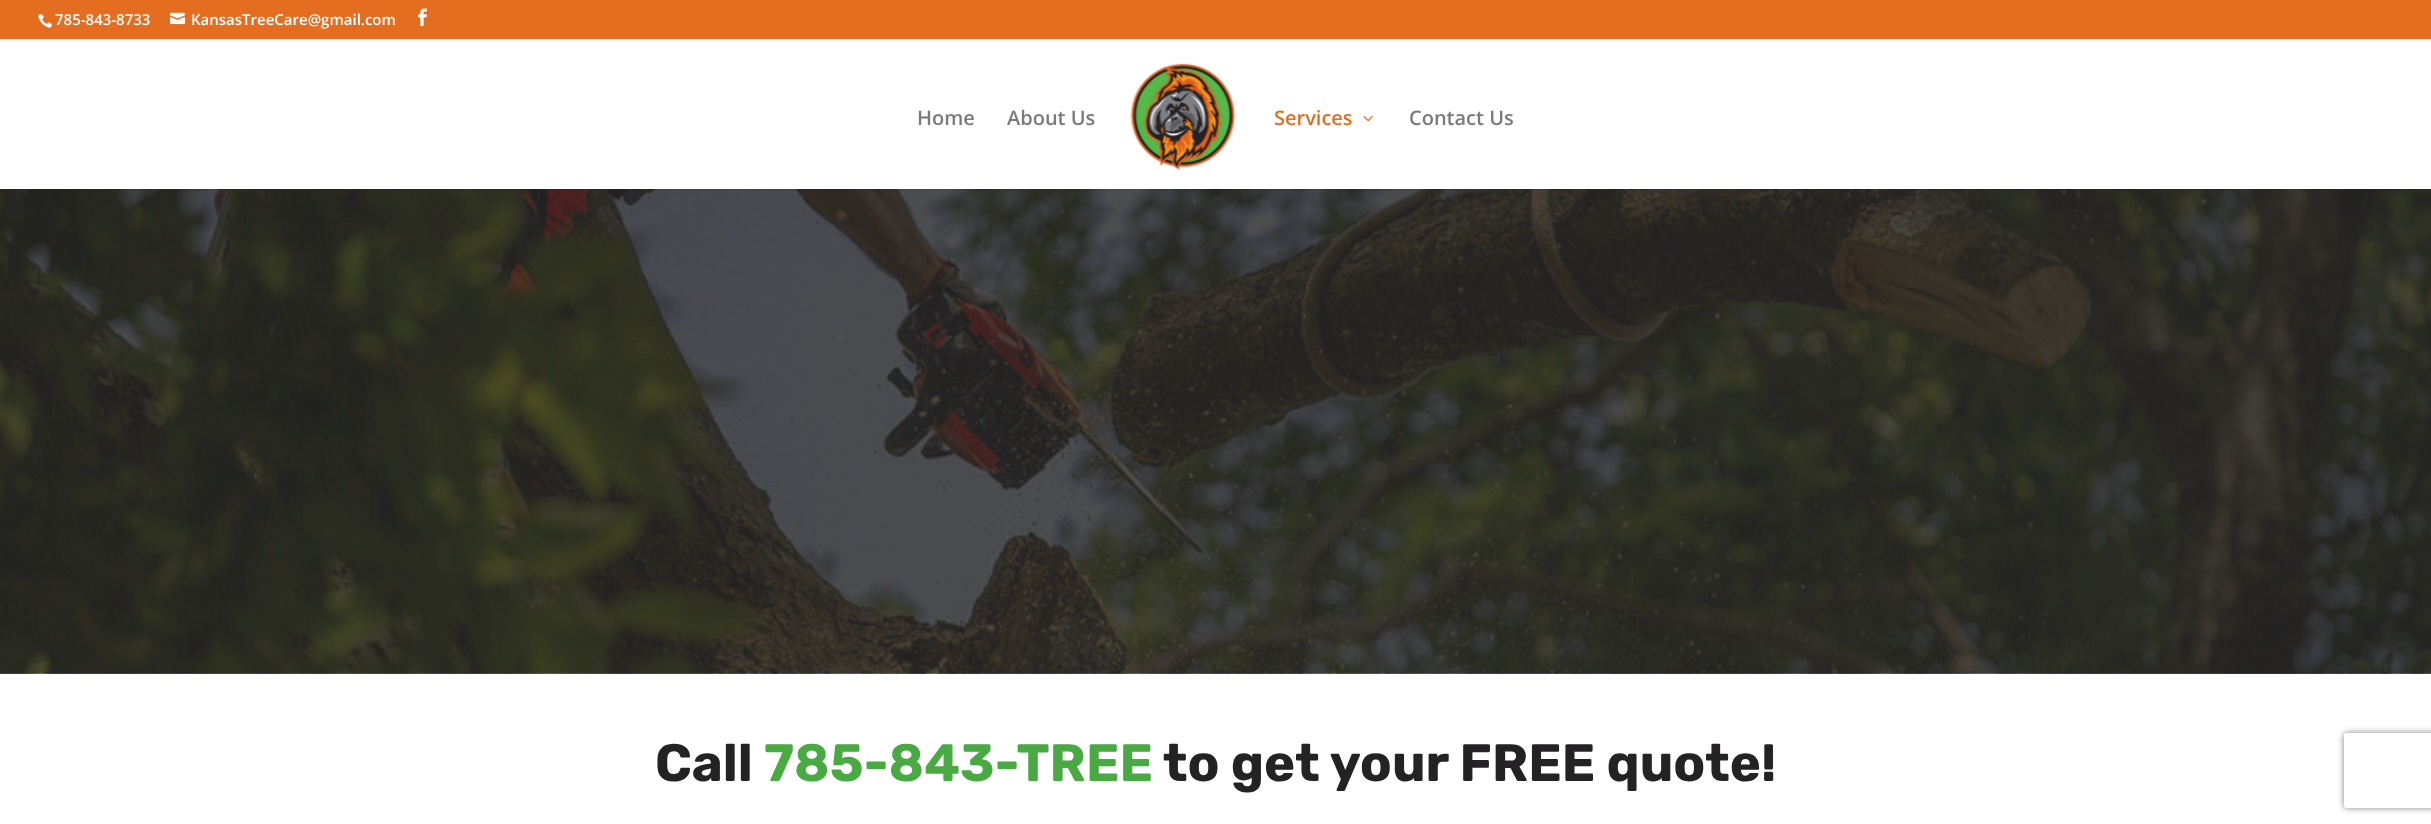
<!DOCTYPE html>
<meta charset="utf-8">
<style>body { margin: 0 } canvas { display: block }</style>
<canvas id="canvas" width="2431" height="824"></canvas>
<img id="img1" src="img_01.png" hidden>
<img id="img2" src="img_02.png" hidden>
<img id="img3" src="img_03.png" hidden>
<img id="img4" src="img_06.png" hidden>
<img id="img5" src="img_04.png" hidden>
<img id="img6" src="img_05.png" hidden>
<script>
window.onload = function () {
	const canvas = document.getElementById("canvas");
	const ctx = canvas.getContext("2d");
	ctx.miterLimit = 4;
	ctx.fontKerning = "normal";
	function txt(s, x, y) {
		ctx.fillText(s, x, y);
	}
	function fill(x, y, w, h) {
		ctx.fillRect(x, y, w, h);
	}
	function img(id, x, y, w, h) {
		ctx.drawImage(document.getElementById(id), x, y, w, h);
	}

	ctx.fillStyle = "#FFFFFF";
	fill(0, 0, 2431, 824);
	ctx.fillStyle = "#E56D1F";
	fill(0, 0, 2431, 39);
	img("img1", 38, 14, 14, 14);
	img("img2", 170, 12, 15, 13);
	img("img3", 418, 8, 9, 19);
	img("img4", 0, 189, 2431, 485);
	ctx.fillStyle = "rgba(0, 0, 0, 0.1)";
	fill(0, 189, 2431, 1);
	img("img5", 1130, 63, 106, 107);
	img("img6", 1363, 116, 10, 6);
	ctx.save();
	ctx.beginPath();
	ctx.moveTo(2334, 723);
	ctx.lineTo(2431, 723);
	ctx.lineTo(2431, 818);
	ctx.lineTo(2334, 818);
	ctx.closePath();
	ctx.moveTo(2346.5, 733);
	ctx.lineTo(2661.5, 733);
	ctx.bezierCurveTo(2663, 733, 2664, 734, 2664, 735.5);
	ctx.lineTo(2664, 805.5);
	ctx.bezierCurveTo(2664, 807, 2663, 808, 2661.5, 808);
	ctx.lineTo(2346.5, 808);
	ctx.bezierCurveTo(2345, 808, 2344, 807, 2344, 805.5);
	ctx.lineTo(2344, 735.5);
	ctx.bezierCurveTo(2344, 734, 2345, 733, 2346.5, 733);
	ctx.closePath();
	ctx.clip("evenodd");
	ctx.fillStyle = "#808080";
	ctx.filter = "blur(3px)";
	ctx.beginPath();
	ctx.roundRect(2344, 733, 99, 75, 2.5);
	ctx.fill();
	ctx.filter = "none";
	ctx.restore();
	ctx.font = "600 15px Open Sans";
	ctx.fillStyle = "#FFFFFF";
	txt("785-843-8733", 55, 25);
	txt("KansasTreeCare@gmail.com", 191, 25);
	ctx.font = "600 20px Open Sans";
	ctx.fillStyle = "#7C7A7C";
	txt("Home", 917, 125);
	txt("About Us", 1007, 125);
	ctx.fillStyle = "#E56D1F";
	txt("Services", 1274, 125);
	ctx.fillStyle = "#7C7A7C";
	txt("Contact Us", 1409, 125);
	ctx.font = "300 52.5px Rubik";
	ctx.fillStyle = "#242225";
	txt("Call", 655, 781);
	ctx.fillStyle = "#49AA43";
	txt("785-843-TREE", 764, 781);
	ctx.fillStyle = "#242225";
	txt("to get your FREE quote!", 1163, 781);
};
</script>
